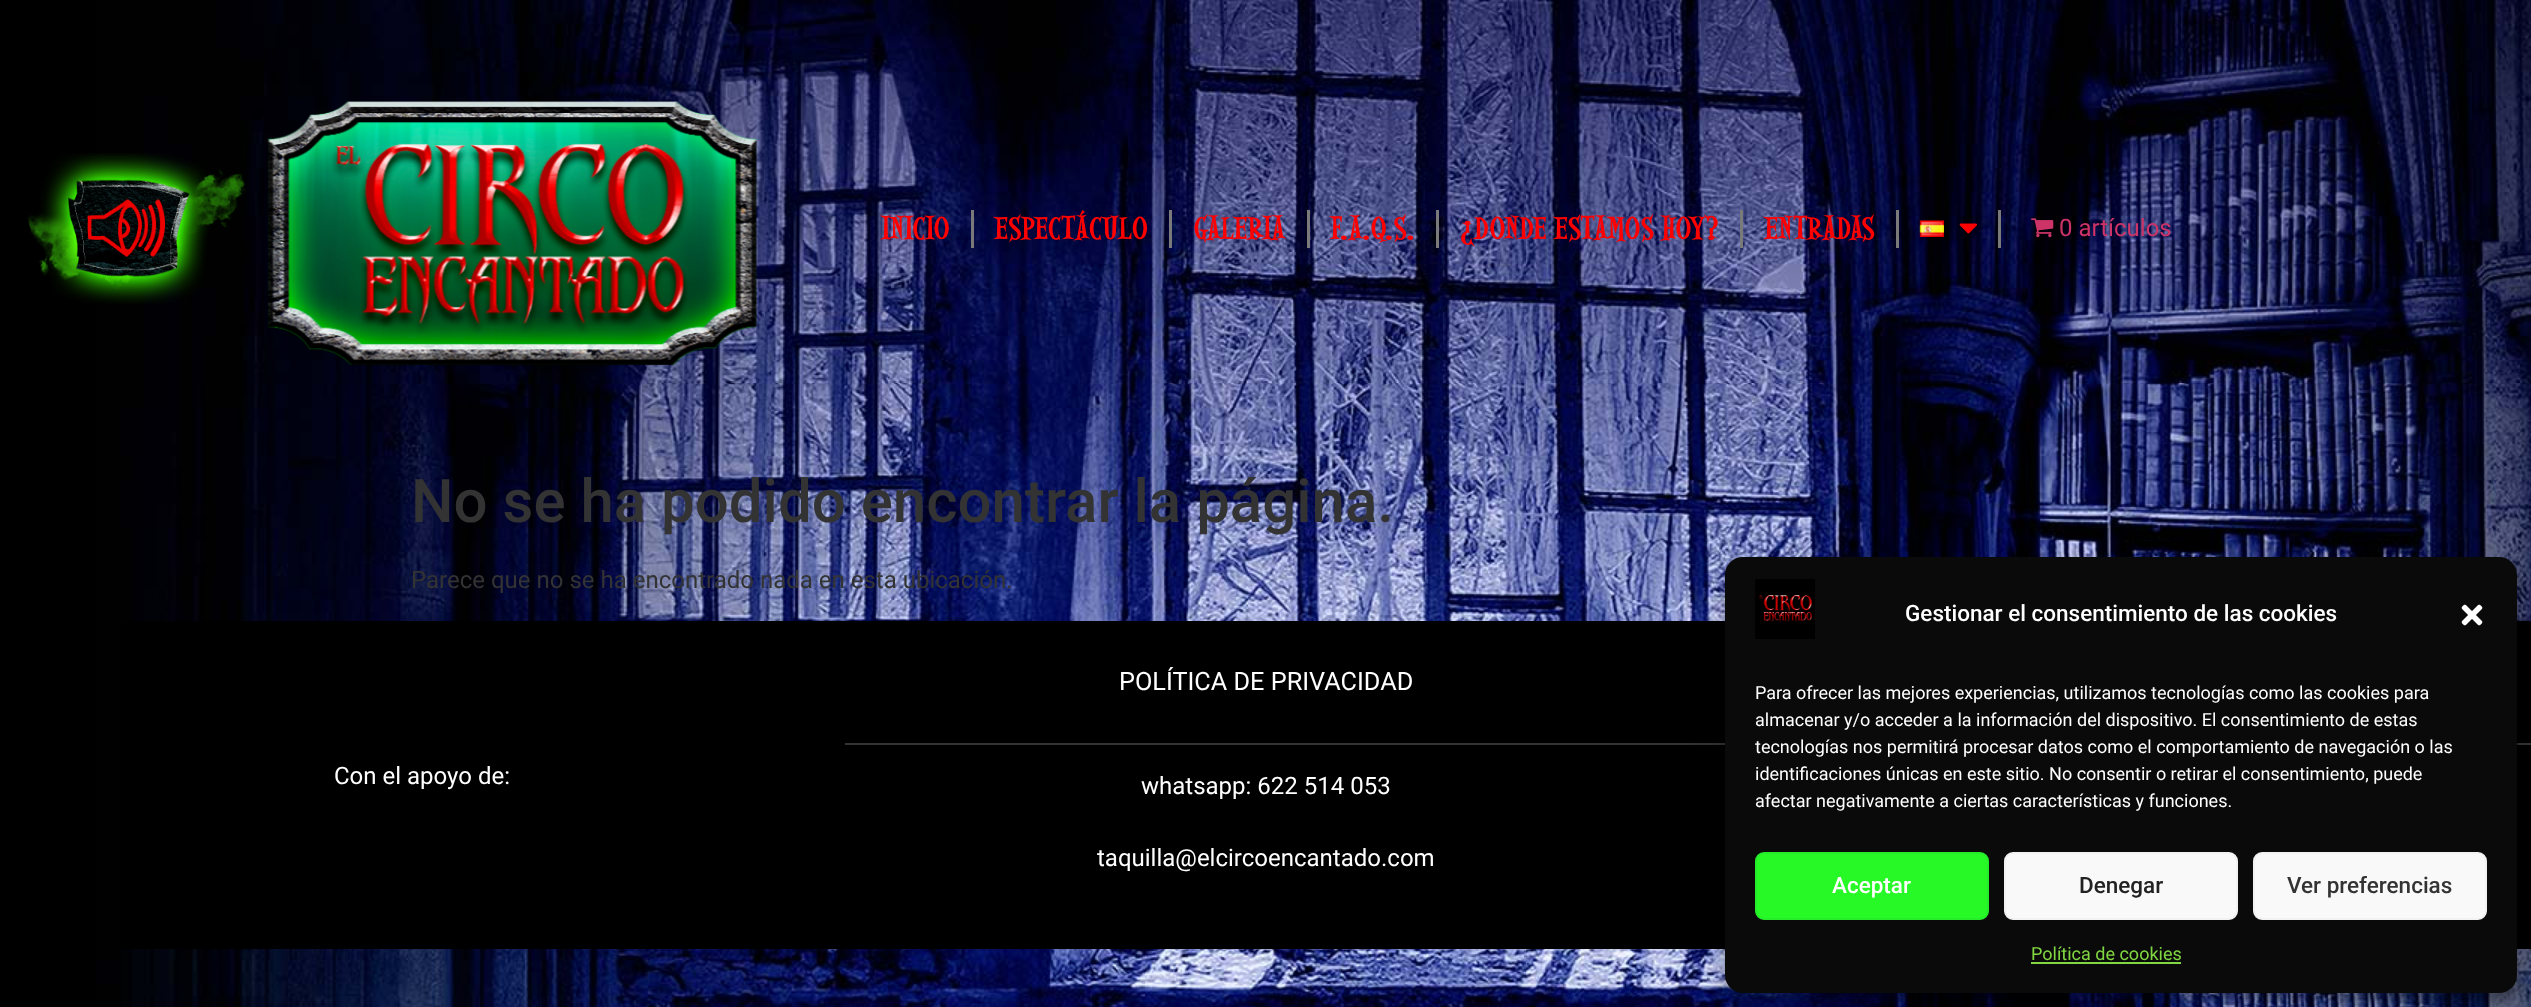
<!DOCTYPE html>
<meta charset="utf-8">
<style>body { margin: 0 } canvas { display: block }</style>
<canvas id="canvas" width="2531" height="1007"></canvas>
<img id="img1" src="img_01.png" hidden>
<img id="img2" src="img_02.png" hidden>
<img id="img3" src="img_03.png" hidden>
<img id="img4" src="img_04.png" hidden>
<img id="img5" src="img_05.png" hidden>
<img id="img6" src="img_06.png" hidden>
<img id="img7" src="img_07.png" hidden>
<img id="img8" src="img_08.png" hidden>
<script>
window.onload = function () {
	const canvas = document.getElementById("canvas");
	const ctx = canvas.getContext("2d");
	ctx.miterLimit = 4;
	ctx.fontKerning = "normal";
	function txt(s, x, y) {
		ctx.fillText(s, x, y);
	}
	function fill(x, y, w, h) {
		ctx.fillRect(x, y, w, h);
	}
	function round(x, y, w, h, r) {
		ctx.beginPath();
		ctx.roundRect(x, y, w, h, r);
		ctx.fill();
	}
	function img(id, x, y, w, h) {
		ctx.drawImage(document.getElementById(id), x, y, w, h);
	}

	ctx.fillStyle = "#000000";
	fill(0, 0, 2531, 1007);
	img("img1", 97, 0, 2434, 1007);
	img("img2", 27, 153, 219, 151);
	img("img3", 267, 101, 490, 265);
	ctx.fillStyle = "#7A7A7A";
	fill(971, 210, 3, 38);
	fill(1169, 210, 3, 38);
	fill(1307, 210, 3, 38);
	fill(1436, 210, 3, 38);
	fill(1740, 210, 3, 38);
	fill(1896, 210, 3, 38);
	img("img4", 1919, 220, 25, 17);
	img("img5", 1959, 223, 19, 11);
	fill(1998, 210, 3, 38);
	img("img6", 2031, 218, 23, 20);
	ctx.fillStyle = "#000000";
	fill(121, 623, 2410, 326);
	fill(130, 621, 2401, 2);
	ctx.fillStyle = "#333333";
	fill(845, 743, 1686, 2);
	ctx.fillStyle = "rgba(0, 0, 0, 0.23)";
	ctx.filter = "blur(4.5px)";
	ctx.beginPath();
	ctx.roundRect(1725, 566, 792, 436, 18);
	ctx.fill();
	ctx.filter = "none";
	ctx.fillStyle = "rgba(0, 0, 0, 0.19)";
	ctx.filter = "blur(15px)";
	ctx.beginPath();
	ctx.roundRect(1725, 572, 792, 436, 18);
	ctx.fill();
	ctx.filter = "none";
	ctx.fillStyle = "#0A0A0A";
	round(1725, 557, 792, 436, 18);
	img("img7", 1755, 579, 60, 60);
	img("img8", 2461, 604, 22, 22);
	ctx.fillStyle = "#27F927";
	ctx.beginPath();
	ctx.roundRect(1756, 853, 232, 66, 8);
	ctx.fill();
	ctx.strokeStyle = "#25ED29";
	ctx.lineWidth = 2;
	ctx.stroke();
	ctx.fillStyle = "#F9F9F9";
	ctx.beginPath();
	ctx.roundRect(2005, 853, 232, 66, 8);
	ctx.fill();
	ctx.strokeStyle = "#F2F2F2";
	ctx.stroke();
	ctx.beginPath();
	ctx.roundRect(2254, 853, 232, 66, 8);
	ctx.fill();
	ctx.stroke();
	ctx.fillStyle = "#81D742";
	fill(2031, 962, 150, 2);
	ctx.font = "bold 30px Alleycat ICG";
	ctx.fillStyle = "#FF0000";
	txt("INICIO", 881, 239);
	txt("ESPECTÁCULO", 994, 239);
	txt("GALERIA", 1193, 239);
	txt("F.A.Q.S.", 1330, 239);
	txt("¿DONDE ESTAMOS HOY?", 1459, 239);
	txt("ENTRADAS", 1764, 239);
	ctx.font = "24px Roboto";
	ctx.fillStyle = "#CC3366";
	txt("0 artículos", 2059, 236);
	ctx.font = "500 60px Roboto";
	ctx.fillStyle = "#333333";
	txt("No se ha podido encontrar la página.", 411, 522);
	ctx.font = "24px Roboto";
	txt("Parece que no se ha encontrado nada en esta ubicación.", 411, 588);
	ctx.fillStyle = "#FFFFFF";
	txt("Con el apoyo de:", 334, 784);
	ctx.font = "25.25px Roboto";
	txt("POLÍTICA DE PRIVACIDAD", 1119, 690);
	ctx.font = "24px Roboto";
	txt("whatsapp: 622 514 053", 1141, 794);
	txt("taquilla@elcircoencantado.com", 1097, 866);
	ctx.font = "500 22.5px Roboto";
	txt("Gestionar el consentimiento de las cookies", 1905, 621);
	ctx.font = "18px Roboto";
	txt("Para ofrecer las mejores experiencias, utilizamos tecnologías como las cookies para", 1755, 699);
	txt("almacenar y/o acceder a la información del dispositivo. El consentimiento de estas", 1755, 726);
	txt("tecnologías nos permitirá procesar datos como el comportamiento de navegación o las", 1755, 753);
	txt("identificaciones únicas en este sitio. No consentir o retirar el consentimiento, puede", 1755, 780);
	txt("afectar negativamente a ciertas características y funciones.", 1755, 807);
	ctx.font = "500 22.5px Roboto";
	txt("Aceptar", 1832, 893);
	ctx.fillStyle = "#222222";
	txt("Denegar", 2079, 893);
	ctx.fillStyle = "#333333";
	txt("Ver preferencias", 2287, 893);
	ctx.font = "18px Roboto";
	ctx.fillStyle = "#81D742";
	txt("Política de cookies", 2031, 960);
};
</script>
